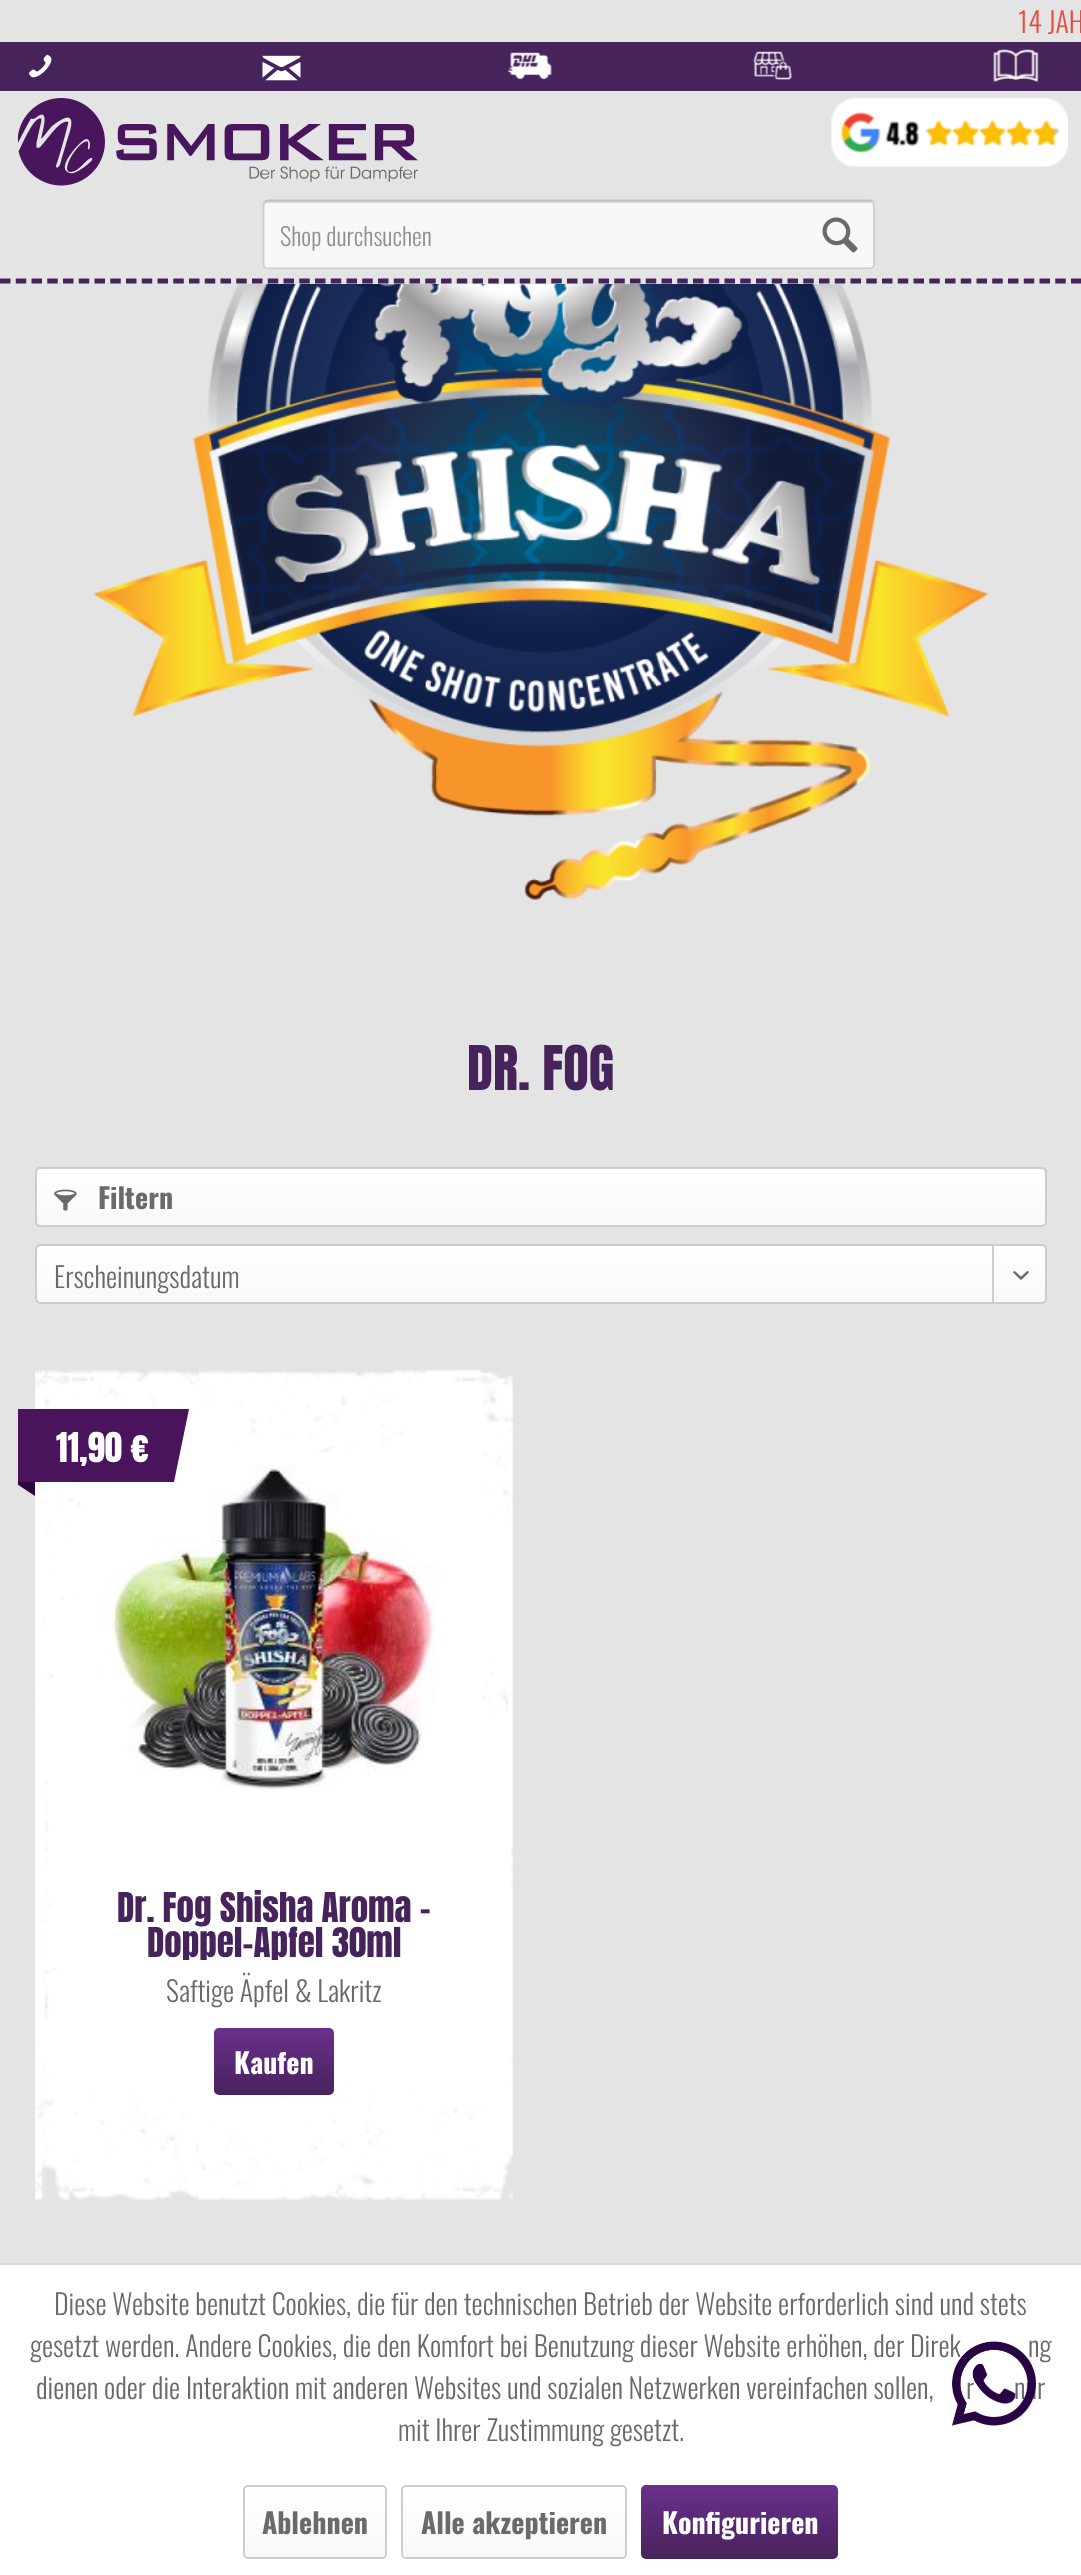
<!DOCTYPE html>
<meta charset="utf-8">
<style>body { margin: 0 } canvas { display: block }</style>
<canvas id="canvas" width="1081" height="2575"></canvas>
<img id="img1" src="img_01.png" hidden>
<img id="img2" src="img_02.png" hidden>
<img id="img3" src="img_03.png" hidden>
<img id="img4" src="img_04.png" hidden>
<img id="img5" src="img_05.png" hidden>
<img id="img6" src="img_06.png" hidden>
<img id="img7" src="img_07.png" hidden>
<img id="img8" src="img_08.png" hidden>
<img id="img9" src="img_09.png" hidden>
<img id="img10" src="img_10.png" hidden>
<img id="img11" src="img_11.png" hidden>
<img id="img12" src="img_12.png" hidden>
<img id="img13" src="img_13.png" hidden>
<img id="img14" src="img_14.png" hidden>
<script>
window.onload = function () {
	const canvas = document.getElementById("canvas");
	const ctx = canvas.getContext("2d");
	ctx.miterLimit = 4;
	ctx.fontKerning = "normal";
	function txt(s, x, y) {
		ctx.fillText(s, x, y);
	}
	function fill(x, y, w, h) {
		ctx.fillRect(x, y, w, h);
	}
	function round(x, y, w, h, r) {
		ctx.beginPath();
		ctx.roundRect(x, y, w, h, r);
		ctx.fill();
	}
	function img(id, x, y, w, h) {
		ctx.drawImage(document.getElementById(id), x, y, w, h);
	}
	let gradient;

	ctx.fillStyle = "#E4E4E4";
	fill(0, 0, 1081, 2575);
	ctx.beginPath();
	ctx.moveTo(0, 281);
	ctx.lineTo(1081.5, 281);
	ctx.strokeStyle = "#47235B";
	ctx.lineWidth = 5.2;
	ctx.setLineDash([10.5, 5.25]);
	ctx.stroke();
	ctx.fillStyle = "#47235B";
	fill(0, 42, 1081, 49);
	img("img1", 29, 54, 23, 24);
	img("img2", 262, 55, 39, 26);
	img("img3", 508, 52, 44, 28);
	img("img4", 753, 51, 39, 29);
	img("img5", 993, 49, 46, 33);
	img("img6", 18, 98, 400, 88);
	img("img7", 831, 97, 237, 70);
	ctx.fillStyle = "#F8F8FA";
	round(263, 200, 612, 70, 5);
	ctx.fillStyle = "#DADAE5";
	ctx.beginPath();
	ctx.moveTo(268, 203);
	ctx.lineTo(870, 203);
	ctx.bezierCurveTo(872, 203, 873, 205, 873, 206);
	ctx.lineTo(873, 205);
	ctx.bezierCurveTo(873, 203, 871, 201, 869, 201);
	ctx.lineTo(268, 201);
	ctx.bezierCurveTo(266, 201, 264, 203, 264, 205);
	ctx.lineTo(264, 206);
	ctx.bezierCurveTo(264, 205, 266, 203, 268, 203);
	ctx.closePath();
	ctx.fill();
	ctx.beginPath();
	ctx.moveTo(264.5, 201.5);
	ctx.lineTo(268, 200.5);
	ctx.lineTo(870, 200.5);
	ctx.lineTo(873, 201.5);
	ctx.strokeStyle = "#C0C0C0";
	ctx.lineWidth = 1.8;
	ctx.setLineDash([]);
	ctx.stroke();
	ctx.beginPath();
	ctx.moveTo(873, 201.5);
	ctx.bezierCurveTo(873.5, 202.5, 874, 203.5, 874, 205);
	ctx.lineTo(874, 264);
	ctx.bezierCurveTo(874, 265.5, 873.5, 266.5, 873, 267.5);
	ctx.bezierCurveTo(872, 268, 871, 268.5, 870, 268.5);
	ctx.lineTo(268, 268.5);
	ctx.bezierCurveTo(266.5, 268.5, 265.5, 268, 264.5, 267.5);
	ctx.bezierCurveTo(264, 266.5, 263.5, 265.5, 263.5, 264);
	ctx.lineTo(263.5, 205);
	ctx.bezierCurveTo(263.5, 203.5, 264, 202.5, 264.5, 201.5);
	ctx.strokeStyle = "#CDCDCD";
	ctx.stroke();
	img("img8", 822, 217, 36, 36);
	img("img9", 93, 284, 896, 617);
	gradient = ctx.createLinearGradient(541, 1169, 541, 1225);
	gradient.addColorStop(0, "#FFFFFF");
	gradient.addColorStop(1, "#F8F8FA");
	ctx.fillStyle = gradient;
	round(37, 1169, 1008, 56, 4);
	ctx.beginPath();
	ctx.roundRect(36, 1168, 1010, 58, 4);
	ctx.lineWidth = 2;
	ctx.stroke();
	img("img10", 54, 1189, 23, 22);
	gradient = ctx.createLinearGradient(541, 1246, 541, 1302);
	gradient.addColorStop(0, "#FFFFFF");
	gradient.addColorStop(1, "#F8F8FA");
	ctx.fillStyle = gradient;
	round(37, 1246, 1008, 56, 4);
	ctx.beginPath();
	ctx.roundRect(36, 1245, 1010, 58, 4);
	ctx.stroke();
	ctx.fillStyle = "#CDCDCD";
	fill(992, 1246, 2, 58);
	img("img11", 1013, 1271, 16, 9);
	img("img12", 35, 1369, 478, 831);
	ctx.save();
	ctx.beginPath();
	ctx.rect(18, 1409, 171, 87);
	ctx.clip();
	ctx.fillStyle = "#2C0840";
	ctx.beginPath();
	ctx.moveTo(14, 1409);
	ctx.lineTo(35, 1409);
	ctx.lineTo(35, 1496);
	ctx.lineTo(14, 1482);
	ctx.closePath();
	ctx.fill();
	ctx.restore();
	img("img13", 100, 1452, 336, 337);
	ctx.save();
	ctx.beginPath();
	ctx.rect(18, 1409, 171, 87);
	ctx.clip();
	ctx.fillStyle = "#49145C";
	ctx.beginPath();
	ctx.moveTo(189, 1409);
	ctx.lineTo(174, 1482);
	ctx.lineTo(14, 1482);
	ctx.lineTo(14, 1409);
	ctx.closePath();
	ctx.fill();
	ctx.restore();
	gradient = ctx.createLinearGradient(274, 2028, 274, 2095);
	gradient.addColorStop(0, "#6B2F8C");
	gradient.addColorStop(1, "#47235B");
	ctx.fillStyle = gradient;
	round(214, 2028, 120, 67, 5);
	ctx.fillStyle = "#FFFFFF";
	fill(0, 2265, 1081, 310);
	ctx.fillStyle = "#DADAE5";
	fill(0, 2263, 1081, 2);
	gradient = ctx.createLinearGradient(315, 2487, 315, 2557);
	gradient.addColorStop(0, "#FFFFFF");
	gradient.addColorStop(1, "#F8F8FA");
	ctx.fillStyle = gradient;
	round(245, 2487, 140, 70, 4);
	ctx.beginPath();
	ctx.roundRect(244, 2486, 142, 72, 4);
	ctx.stroke();
	gradient = ctx.createLinearGradient(514, 2487, 514, 2557);
	gradient.addColorStop(0, "#FFFFFF");
	gradient.addColorStop(1, "#F8F8FA");
	ctx.fillStyle = gradient;
	round(403, 2487, 222, 70, 4);
	ctx.beginPath();
	ctx.roundRect(402, 2486, 224, 72, 4);
	ctx.stroke();
	gradient = ctx.createLinearGradient(739, 2485, 739, 2559);
	gradient.addColorStop(0, "#6B2F8C");
	gradient.addColorStop(1, "#47235B");
	ctx.fillStyle = gradient;
	round(641, 2485, 197, 74, 5);
	ctx.font = "300 28px Oswald";
	ctx.fillStyle = "#E74C3C";
	txt("14 JAH", 1018, 33);
	ctx.font = "300 24.5px Oswald";
	ctx.fillStyle = "#909090";
	txt("Shop durchsuchen", 280, 246);
	ctx.font = "52.5px Anton";
	ctx.fillStyle = "#47235B";
	txt("DR. FOG", 467, 1090);
	ctx.font = "bold 28px Oswald";
	ctx.fillStyle = "#6A6A6A";
	txt("Filtern", 98, 1209);
	ctx.font = "300 28px Oswald";
	txt("Erscheinungsdatum", 54, 1288);
	ctx.font = "35px Anton";
	ctx.fillStyle = "#FFFFFF";
	txt("11,90 €", 56, 1462);
	ctx.save();
	ctx.beginPath();
	ctx.rect(88, 1890, 372, 70);
	ctx.clip();
	ctx.fillStyle = "#47235B";
	txt("Dr. Fog Shisha Aroma -", 117, 1922);
	txt("Doppel-Apfel 30ml", 147, 1957);
	ctx.restore();
	ctx.font = "300 28px Oswald";
	ctx.fillStyle = "#6A6A6A";
	txt("Saftige Äpfel & Lakritz", 166, 2002);
	ctx.font = "bold 28px Oswald";
	ctx.fillStyle = "#FFFFFF";
	txt("Kaufen", 234, 2074);
	ctx.font = "300 28px Oswald";
	ctx.fillStyle = "#6A6A6A";
	txt("Diese Website benutzt Cookies, die für den technischen Betrieb der Website erforderlich sind und stets", 54, 2315);
	txt("gesetzt werden. Andere Cookies, die den Komfort bei Benutzung dieser Website erhöhen, der Direk", 30, 2357);
	txt("ng", 1028, 2357);
	txt("dienen oder die Interaktion mit anderen Websites und sozialen Netzwerken vereinfachen sollen,", 36, 2399);
	txt("r", 966, 2399);
	txt("nur", 1014, 2399);
	txt("mit Ihrer Zustimmung gesetzt.", 398, 2441);
	ctx.font = "bold 28px Oswald";
	txt("Ablehnen", 262, 2534);
	txt("Alle akzeptieren", 421, 2534);
	ctx.fillStyle = "#FFFFFF";
	txt("Konfigurieren", 662, 2534);
	img("img14", 952, 2341, 84, 85);
};
</script>
